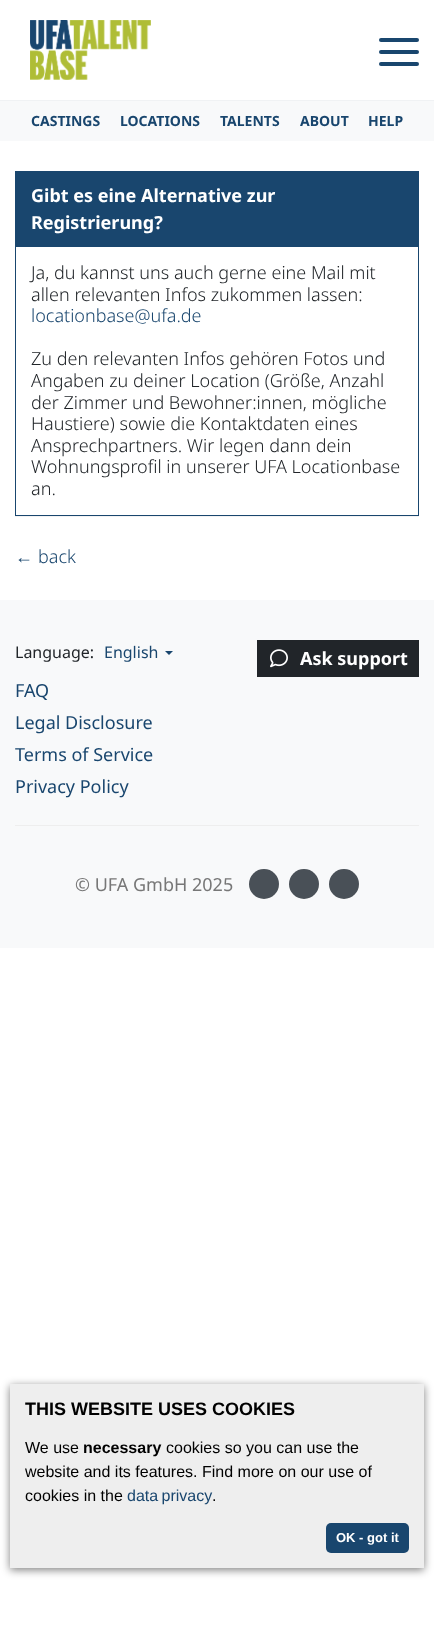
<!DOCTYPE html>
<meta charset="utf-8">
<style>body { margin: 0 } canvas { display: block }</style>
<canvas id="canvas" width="434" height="1628"></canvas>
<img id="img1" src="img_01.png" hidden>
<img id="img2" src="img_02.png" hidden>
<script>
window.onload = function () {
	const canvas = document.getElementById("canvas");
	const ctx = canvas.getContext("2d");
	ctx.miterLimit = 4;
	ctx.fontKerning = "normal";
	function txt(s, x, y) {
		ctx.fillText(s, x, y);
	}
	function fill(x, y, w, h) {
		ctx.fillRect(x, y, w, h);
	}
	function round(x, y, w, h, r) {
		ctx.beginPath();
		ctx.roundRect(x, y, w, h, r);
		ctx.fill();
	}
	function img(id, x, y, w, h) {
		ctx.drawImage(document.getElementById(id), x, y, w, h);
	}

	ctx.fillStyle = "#FFFFFF";
	fill(0, 0, 434, 1628);
	img("img1", 30, 20, 121, 60);
	ctx.fillStyle = "#19466E";
	round(379, 62, 40, 4, 2);
	round(379, 38, 40, 4, 2);
	round(379, 50, 40, 4, 2);
	ctx.fillStyle = "#F0F2F4";
	fill(0, 100, 434, 1);
	ctx.fillStyle = "#F8F9FA";
	fill(0, 101, 434, 40);
	ctx.save();
	ctx.beginPath();
	ctx.rect(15, 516, 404, 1);
	ctx.clip();
	ctx.fillStyle = "rgba(0, 0, 0, 0.05)";
	ctx.filter = "blur(0.5px)";
	ctx.beginPath();
	ctx.rect(15, 172, 404, 345);
	ctx.fill();
	ctx.filter = "none";
	ctx.restore();
	ctx.strokeStyle = "#19466E";
	ctx.strokeRect(15.5, 171.5, 403, 344);
	ctx.fillStyle = "#19466E";
	fill(16, 172, 402, 75);
	ctx.fillStyle = "#F8F9FA";
	fill(0, 600, 434, 348);
	ctx.fillStyle = "#19466E";
	ctx.beginPath();
	ctx.moveTo(165, 651);
	ctx.lineTo(173, 651);
	ctx.lineTo(169, 655);
	ctx.closePath();
	ctx.fill();
	ctx.fillStyle = "#212529";
	fill(257, 640, 162, 37);
	img("img2", 270, 649, 18, 19);
	ctx.fillStyle = "#EEEEEE";
	fill(15, 825, 404, 1);
	ctx.fillStyle = "#495057";
	ctx.beginPath();
	ctx.arc(264, 884, 15, 0, Math.PI * 2);
	ctx.fill();
	ctx.beginPath();
	ctx.arc(304, 884, 15, 0, Math.PI * 2);
	ctx.fill();
	ctx.beginPath();
	ctx.arc(344, 884, 15, 0, Math.PI * 2);
	ctx.fill();
	ctx.fillStyle = "rgba(0, 0, 0, 0.5)";
	ctx.filter = "blur(4px)";
	ctx.beginPath();
	ctx.rect(10, 1386, 414, 184);
	ctx.fill();
	ctx.filter = "none";
	ctx.fillStyle = "#EEEEEE";
	fill(10, 1384, 414, 184);
	ctx.fillStyle = "#19466E";
	round(326, 1523, 83, 30, 5);
	ctx.font = "bold 14px Noto Sans";
	txt("CASTINGS", 31, 126);
	txt("LOCATIONS", 120, 126);
	txt("TALENTS", 220, 126);
	txt("ABOUT", 300, 126);
	txt("HELP", 368, 126);
	ctx.font = "bold 18px Noto Sans";
	ctx.fillStyle = "#FFFFFF";
	txt("Gibt es eine Alternative zur", 31, 202);
	txt("Registrierung?", 31, 229);
	ctx.font = "300 18px Noto Sans";
	ctx.fillStyle = "#212529";
	txt("Ja, du kannst uns auch gerne eine Mail mit", 31, 279);
	txt("allen relevanten Infos zukommen lassen:", 31, 301);
	ctx.fillStyle = "#19466E";
	txt("locationbase@ufa.de", 31, 322);
	ctx.fillStyle = "#212529";
	txt("Zu den relevanten Infos gehören Fotos und", 31, 365);
	txt("Angaben zu deiner Location (Größe, Anzahl", 31, 387);
	txt("der Zimmer und Bewohner:innen, mögliche", 31, 409);
	txt("Haustiere) sowie die Kontaktdaten eines", 31, 430);
	txt("Ansprechpartners. Wir legen dann dein", 31, 452);
	txt("Wohnungsprofil in unserer UFA Locationbase", 31, 473);
	txt("an.", 31, 495);
	ctx.font = "18px Liberation Sans";
	ctx.fillStyle = "#19466E";
	txt("←", 15, 563);
	ctx.font = "300 18px Noto Sans";
	txt("back", 38, 563);
	ctx.font = "16px Noto Sans";
	ctx.fillStyle = "#212529";
	txt("Language:", 15, 658);
	ctx.fillStyle = "#19466E";
	txt("English", 104, 658);
	ctx.font = "bold 18px Noto Sans";
	ctx.fillStyle = "#FFFFFF";
	txt("Ask support", 300, 665);
	ctx.font = "18px Noto Sans";
	ctx.fillStyle = "#19466E";
	txt("FAQ", 15, 697);
	txt("Legal Disclosure", 15, 729);
	txt("Terms of Service", 15, 761);
	txt("Privacy Policy", 15, 793);
	ctx.fillStyle = "#777777";
	txt("© UFA GmbH 2025", 75, 891);
	ctx.font = "bold 18px Liberation Sans";
	ctx.fillStyle = "#000000";
	txt("THIS WEBSITE USES COOKIES", 25, 1415);
	ctx.font = "16px Liberation Sans";
	txt("We use", 25, 1453);
	ctx.font = "bold 16px Liberation Sans";
	txt("necessary", 83, 1453);
	ctx.font = "16px Liberation Sans";
	txt("cookies so you can use the", 166, 1453);
	txt("website and its features. Find more on our use of", 25, 1477);
	txt("cookies in the", 25, 1501);
	ctx.wordSpacing = "-1px";
	ctx.fillStyle = "#19466E";
	txt("data privacy", 127, 1501);
	ctx.wordSpacing = "0px";
	ctx.fillStyle = "#000000";
	txt(".", 212, 1501);
	ctx.font = "bold 13px Liberation Sans";
	ctx.fillStyle = "#FFFFFF";
	txt("OK - got it", 336, 1542);
};
</script>
